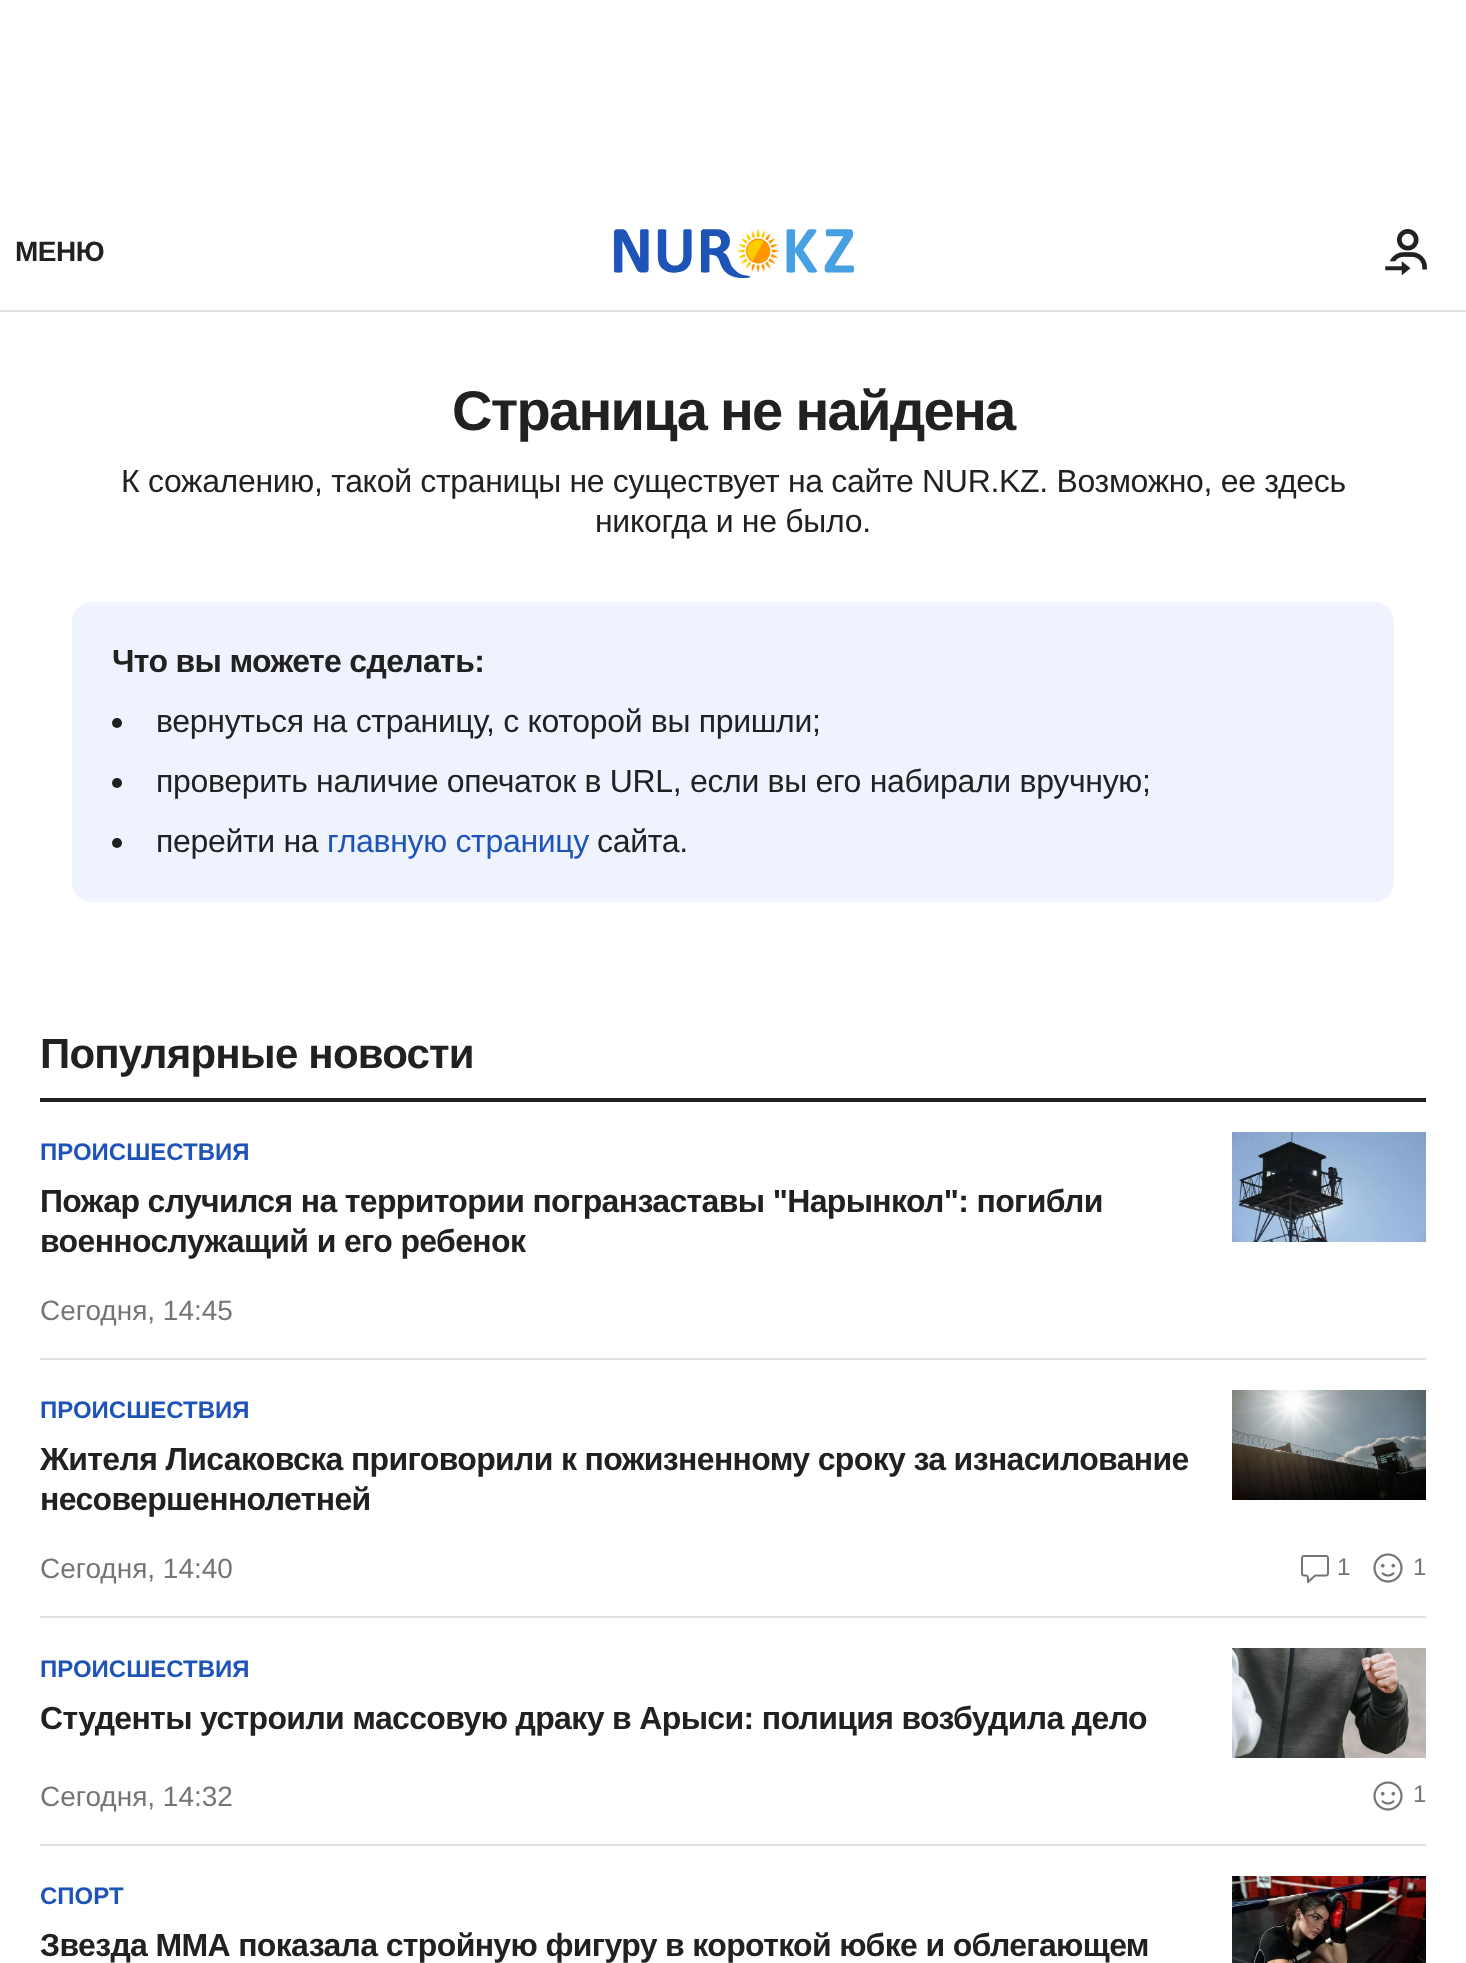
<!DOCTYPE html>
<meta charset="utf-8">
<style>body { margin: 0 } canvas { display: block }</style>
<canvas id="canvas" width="1466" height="1963"></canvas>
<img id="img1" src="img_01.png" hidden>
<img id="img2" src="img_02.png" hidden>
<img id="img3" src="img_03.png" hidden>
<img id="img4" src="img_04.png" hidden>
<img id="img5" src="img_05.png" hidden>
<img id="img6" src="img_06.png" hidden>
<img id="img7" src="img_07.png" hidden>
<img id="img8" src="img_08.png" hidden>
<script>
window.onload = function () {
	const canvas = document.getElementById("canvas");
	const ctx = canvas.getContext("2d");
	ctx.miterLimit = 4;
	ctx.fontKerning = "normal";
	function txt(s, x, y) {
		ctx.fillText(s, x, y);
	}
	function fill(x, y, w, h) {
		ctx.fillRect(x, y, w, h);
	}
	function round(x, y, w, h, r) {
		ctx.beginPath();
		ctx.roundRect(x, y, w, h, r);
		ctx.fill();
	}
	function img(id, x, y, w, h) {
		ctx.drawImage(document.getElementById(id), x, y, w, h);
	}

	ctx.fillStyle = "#FFFFFF";
	fill(0, 0, 1466, 1963);
	ctx.fillStyle = "#E2E2E2";
	fill(0, 310, 1466, 2);
	img("img1", 614, 229, 240, 49);
	img("img2", 1385, 229, 42, 47);
	ctx.fillStyle = "#EFF3FE";
	round(72, 602, 1322, 300, 20);
	ctx.fillStyle = "#212121";
	ctx.beginPath();
	ctx.arc(117, 723, 5, 0, Math.PI * 2);
	ctx.fill();
	ctx.beginPath();
	ctx.arc(117, 783, 5, 0, Math.PI * 2);
	ctx.fill();
	ctx.beginPath();
	ctx.arc(117, 843, 5, 0, Math.PI * 2);
	ctx.fill();
	fill(40, 1098, 1386, 4);
	ctx.fillStyle = "#E2E2E2";
	fill(40, 1358, 1386, 2);
	img("img3", 1232, 1132, 194, 110);
	fill(40, 1616, 1386, 2);
	img("img4", 1232, 1390, 194, 110);
	img("img5", 1301, 1555, 28, 28);
	img("img6", 1373, 1553, 30, 30);
	fill(40, 1844, 1386, 2);
	img("img7", 1232, 1648, 194, 110);
	img("img6", 1373, 1781, 30, 30);
	img("img8", 1232, 1876, 194, 87);
	ctx.letterSpacing = "-0.5px";
	ctx.font = "bold 28px Liberation Sans";
	ctx.fillStyle = "#212121";
	txt("МЕНЮ", 15, 261);
	ctx.letterSpacing = "-1.7px";
	ctx.font = "bold 56px Liberation Sans";
	txt("Страница не найдена", 452, 430);
	ctx.letterSpacing = "-0.32px";
	ctx.font = "32px Liberation Sans";
	txt("К сожалению, такой страницы не существует на сайте NUR.KZ. Возможно, ее здесь", 121, 492);
	txt("никогда и не было.", 595, 532);
	ctx.letterSpacing = "-0.65px";
	ctx.font = "bold 32px Liberation Sans";
	txt("Что вы можете сделать:", 112, 672);
	ctx.letterSpacing = "-0.32px";
	ctx.font = "32px Liberation Sans";
	txt("вернуться на страницу, с которой вы пришли;", 156, 732);
	txt("проверить наличие опечаток в URL, если вы его набирали вручную;", 156, 792);
	txt("перейти на", 156, 852);
	ctx.fillStyle = "#1E54B7";
	txt("главную страницу", 327, 852);
	ctx.fillStyle = "#212121";
	txt("сайта.", 597, 852);
	ctx.letterSpacing = "-0.8px";
	ctx.font = "bold 42px Liberation Sans";
	txt("Популярные новости", 40, 1068);
	ctx.letterSpacing = "0px";
	ctx.font = "bold 24px Liberation Sans";
	ctx.fillStyle = "#1E54B7";
	txt("ПРОИСШЕСТВИЯ", 40, 1160);
	ctx.letterSpacing = "-0.65px";
	ctx.font = "bold 32px Liberation Sans";
	ctx.fillStyle = "#212121";
	txt("Пожар случился на территории погранзаставы \"Нарынкол\": погибли", 40, 1212);
	txt("военнослужащий и его ребенок", 40, 1252);
	ctx.letterSpacing = "0px";
	ctx.font = "28px Liberation Sans";
	ctx.fillStyle = "#757575";
	txt("Сегодня, 14:45", 40, 1320);
	ctx.font = "bold 24px Liberation Sans";
	ctx.fillStyle = "#1E54B7";
	txt("ПРОИСШЕСТВИЯ", 40, 1418);
	ctx.letterSpacing = "-0.65px";
	ctx.font = "bold 32px Liberation Sans";
	ctx.fillStyle = "#212121";
	txt("Жителя Лисаковска приговорили к пожизненному сроку за изнасилование", 40, 1470);
	txt("несовершеннолетней", 40, 1510);
	ctx.letterSpacing = "0px";
	ctx.font = "28px Liberation Sans";
	ctx.fillStyle = "#757575";
	txt("Сегодня, 14:40", 40, 1578);
	ctx.font = "24px Liberation Sans";
	txt("1", 1337, 1575);
	txt("1", 1413, 1575);
	ctx.font = "bold 24px Liberation Sans";
	ctx.fillStyle = "#1E54B7";
	txt("ПРОИСШЕСТВИЯ", 40, 1677);
	ctx.letterSpacing = "-0.65px";
	ctx.font = "bold 32px Liberation Sans";
	ctx.fillStyle = "#212121";
	txt("Студенты устроили массовую драку в Арыси: полиция возбудила дело", 40, 1729);
	ctx.letterSpacing = "0px";
	ctx.font = "28px Liberation Sans";
	ctx.fillStyle = "#757575";
	txt("Сегодня, 14:32", 40, 1806);
	ctx.font = "24px Liberation Sans";
	txt("1", 1413, 1802);
	ctx.font = "bold 24px Liberation Sans";
	ctx.fillStyle = "#1E54B7";
	txt("СПОРТ", 40, 1904);
	ctx.letterSpacing = "-0.65px";
	ctx.font = "bold 32px Liberation Sans";
	ctx.fillStyle = "#212121";
	txt("Звезда ММА показала стройную фигуру в короткой юбке и облегающем", 40, 1956);
};
</script>
